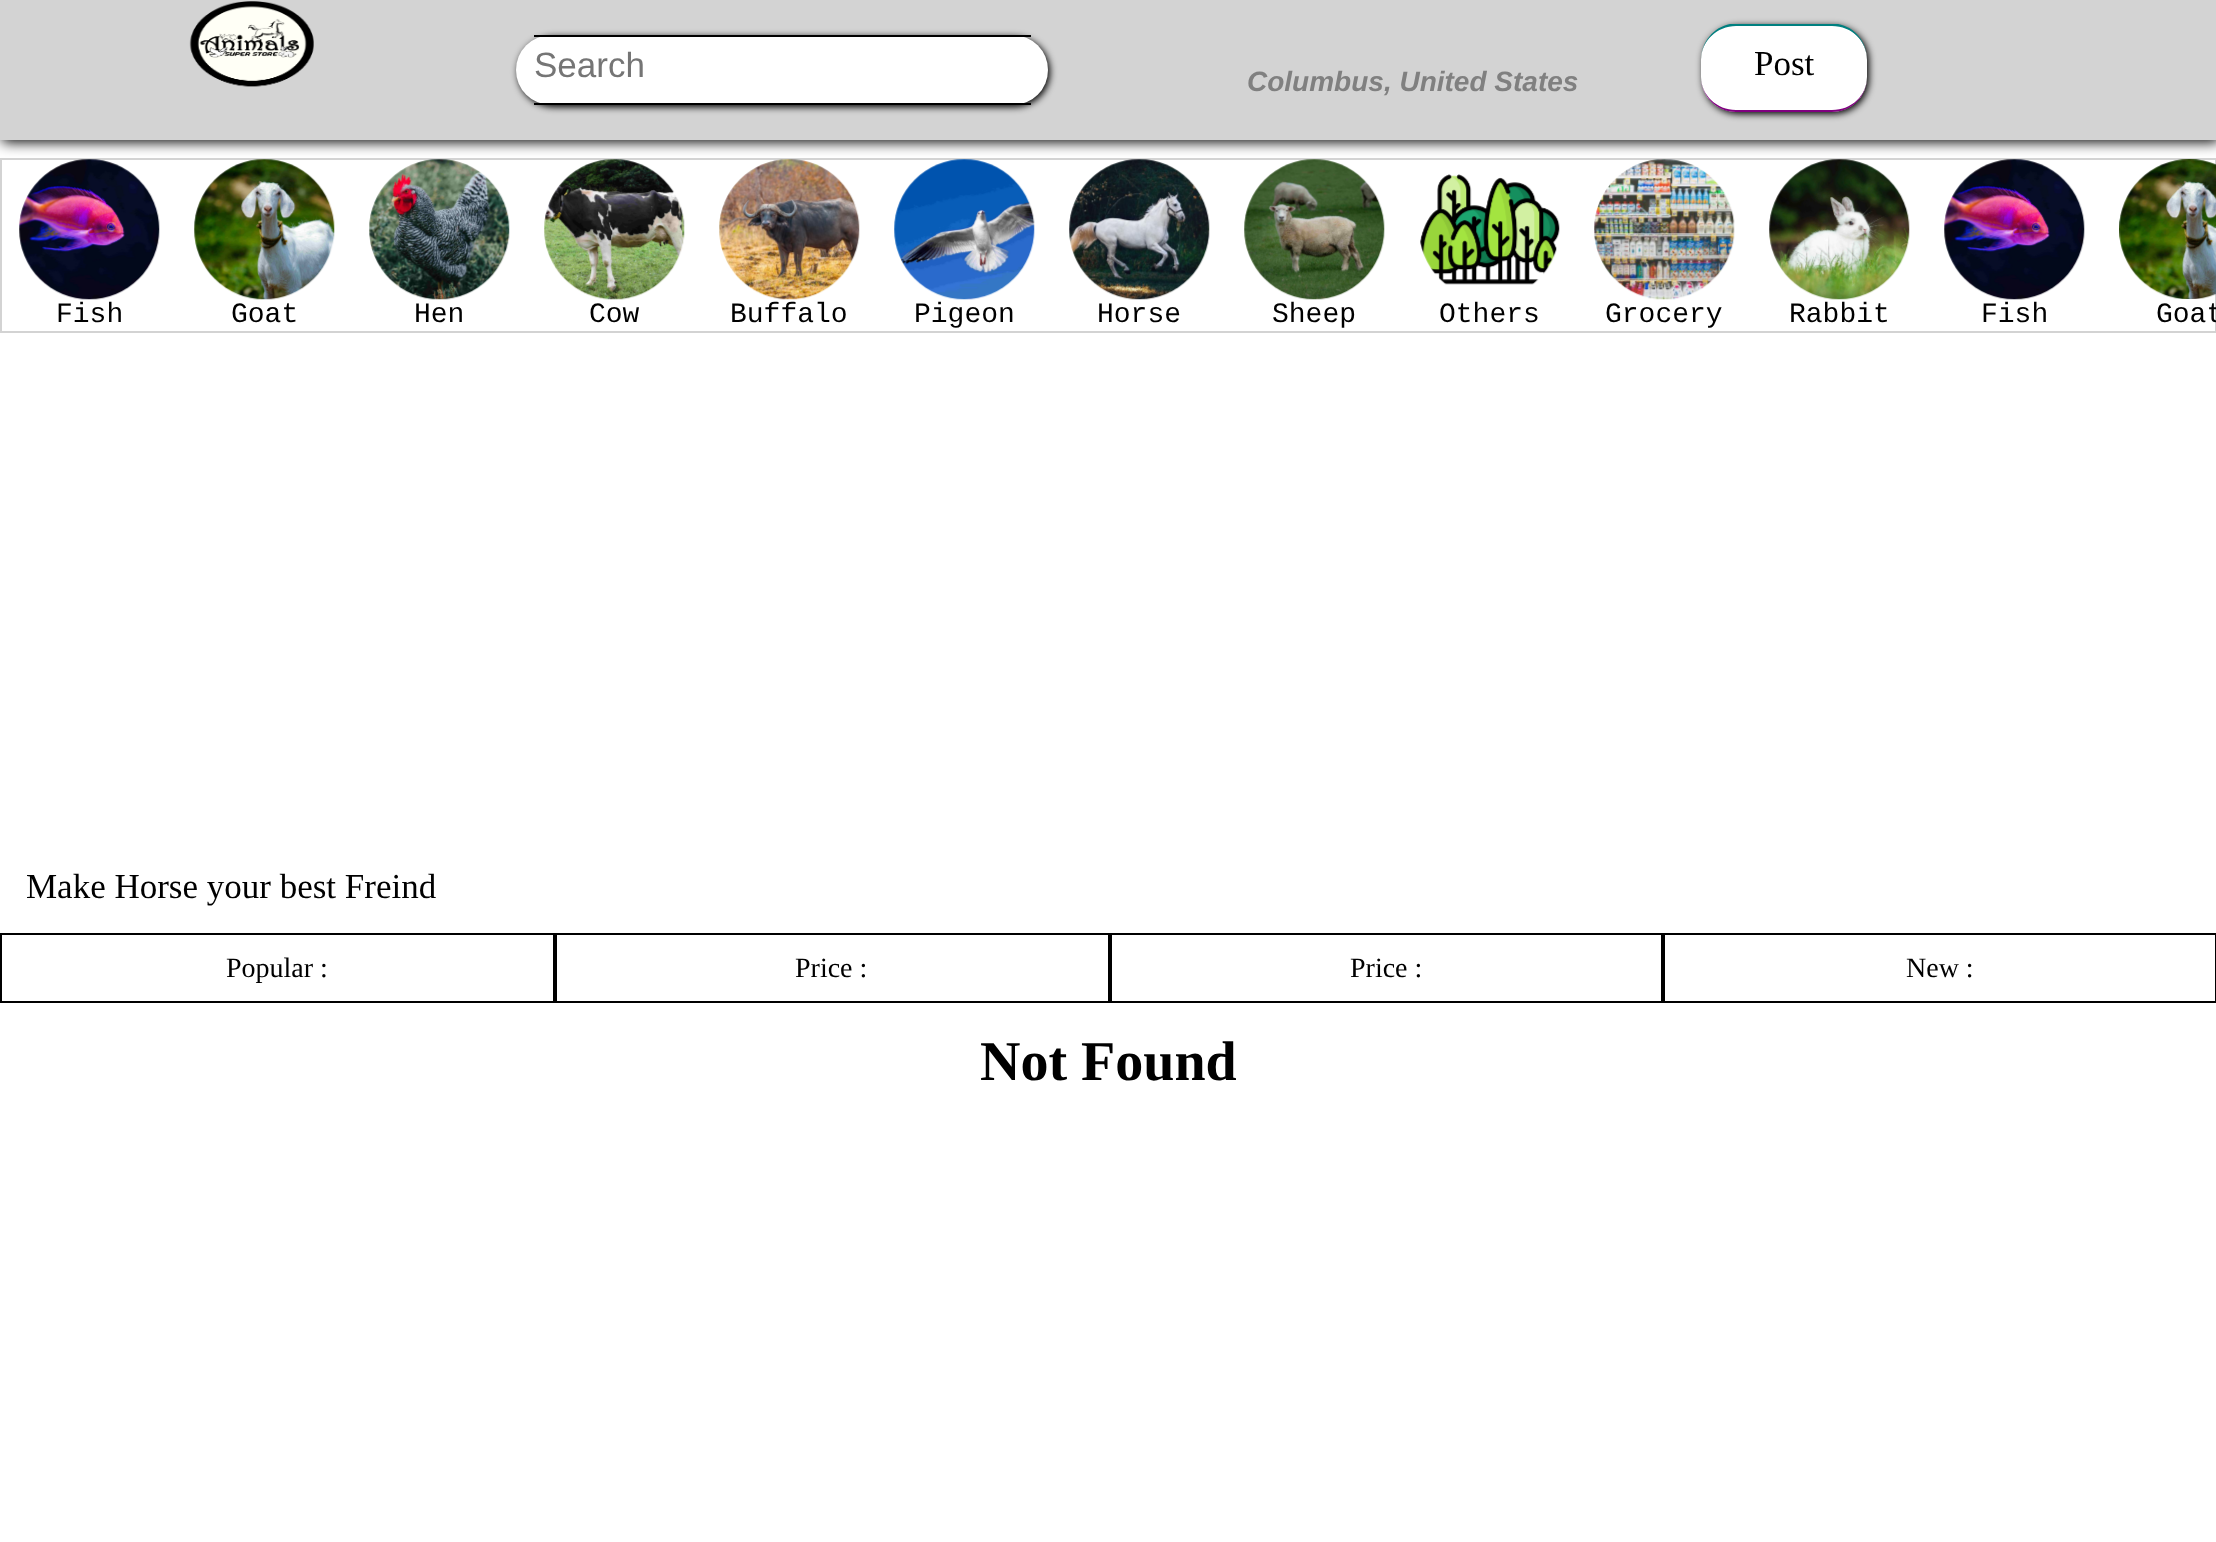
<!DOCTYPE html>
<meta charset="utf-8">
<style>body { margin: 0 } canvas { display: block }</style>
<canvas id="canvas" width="2216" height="1542"></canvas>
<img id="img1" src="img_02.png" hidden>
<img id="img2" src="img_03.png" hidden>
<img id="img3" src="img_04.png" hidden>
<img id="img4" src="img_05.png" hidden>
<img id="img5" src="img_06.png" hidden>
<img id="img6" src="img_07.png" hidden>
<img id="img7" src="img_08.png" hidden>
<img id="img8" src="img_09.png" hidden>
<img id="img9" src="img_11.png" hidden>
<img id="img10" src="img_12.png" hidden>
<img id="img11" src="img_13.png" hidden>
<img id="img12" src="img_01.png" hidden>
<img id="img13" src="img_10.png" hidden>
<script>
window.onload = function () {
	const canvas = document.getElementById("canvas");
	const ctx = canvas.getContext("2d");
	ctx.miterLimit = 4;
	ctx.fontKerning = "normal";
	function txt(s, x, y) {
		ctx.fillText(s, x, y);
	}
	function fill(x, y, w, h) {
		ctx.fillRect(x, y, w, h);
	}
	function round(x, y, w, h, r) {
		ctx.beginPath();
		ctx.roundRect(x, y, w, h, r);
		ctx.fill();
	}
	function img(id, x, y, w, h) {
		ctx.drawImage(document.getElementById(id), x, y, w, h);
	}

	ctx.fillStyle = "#FFFFFF";
	fill(0, 0, 2216, 1542);
	ctx.strokeStyle = "#D3D3D3";
	ctx.lineWidth = 2;
	ctx.strokeRect(1, 159, 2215, 173);
	img("img1", 19, 159, 141, 141);
	img("img2", 194, 159, 141, 141);
	img("img3", 369, 159, 141, 141);
	img("img4", 544, 159, 141, 141);
	img("img5", 719, 159, 141, 141);
	img("img6", 894, 159, 141, 141);
	img("img7", 1069, 159, 141, 141);
	img("img8", 1244, 159, 141, 141);
	img("img9", 1594, 159, 141, 141);
	img("img10", 1769, 159, 141, 141);
	img("img1", 1944, 159, 141, 141);
	img("img11", 2119, 159, 97, 140);
	ctx.fillStyle = "#000000";
	ctx.filter = "blur(7px)";
	ctx.beginPath();
	ctx.rect(2, 2, 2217, 140);
	ctx.fill();
	ctx.filter = "none";
	ctx.fillStyle = "#D3D3D3";
	fill(0, 0, 2216, 140);
	img("img12", 189, 1, 125, 86);
	ctx.fillStyle = "#000000";
	ctx.filter = "blur(3.5px)";
	ctx.beginPath();
	ctx.roundRect(518, 37, 532, 70, 35);
	ctx.fill();
	ctx.filter = "none";
	ctx.fillStyle = "#FFFFFF";
	round(516, 35, 532, 70, 35);
	ctx.fillStyle = "#000000";
	fill(534, 35, 497, 2);
	fill(534, 103, 497, 2);
	ctx.filter = "blur(3.5px)";
	ctx.beginPath();
	ctx.roundRect(1703, 26, 166, 88, 35);
	ctx.fill();
	ctx.filter = "none";
	ctx.fillStyle = "#FFFFFF";
	round(1701, 25, 166, 87, 35);
	ctx.fillStyle = "#008080";
	ctx.beginPath();
	ctx.moveTo(1736, 26);
	ctx.lineTo(1832, 26);
	ctx.bezierCurveTo(1852, 26, 1867, 41, 1867, 60);
	ctx.bezierCurveTo(1867, 42, 1855, 27, 1838, 24);
	ctx.lineTo(1730, 24);
	ctx.bezierCurveTo(1714, 27, 1701, 42, 1701, 60);
	ctx.bezierCurveTo(1701, 41, 1717, 26, 1736, 26);
	ctx.closePath();
	ctx.fill();
	ctx.fillStyle = "#800080";
	ctx.beginPath();
	ctx.moveTo(1832, 112);
	ctx.bezierCurveTo(1852, 112, 1867, 96, 1867, 77);
	ctx.bezierCurveTo(1867, 95, 1852, 110, 1832, 110);
	ctx.lineTo(1736, 110);
	ctx.bezierCurveTo(1717, 110, 1701, 95, 1701, 77);
	ctx.bezierCurveTo(1701, 96, 1717, 112, 1736, 112);
	ctx.closePath();
	ctx.fill();
	img("img13", 1420, 174, 140, 111);
	ctx.strokeStyle = "#000000";
	ctx.strokeRect(1, 934, 553, 68);
	ctx.strokeRect(556, 934, 553, 68);
	ctx.strokeRect(1111, 934, 551, 68);
	ctx.strokeRect(1664, 934, 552, 68);
	ctx.font = "35px Liberation Sans";
	ctx.fillStyle = "#757575";
	txt("Search", 534, 77);
	ctx.font = "35px Liberation Serif";
	ctx.fillStyle = "#000000";
	txt("Post", 1754, 75);
	ctx.font = "italic bold 28px Liberation Sans";
	ctx.fillStyle = "#808080";
	txt("Columbus, United States", 1247, 91);
	ctx.font = "28px Liberation Mono";
	ctx.fillStyle = "#000000";
	txt("Fish", 56, 322);
	txt("Goat", 231, 322);
	txt("Hen", 414, 322);
	txt("Cow", 589, 322);
	txt("Buffalo", 730, 322);
	txt("Pigeon", 914, 322);
	txt("Horse", 1097, 322);
	txt("Sheep", 1272, 322);
	txt("Others", 1439, 322);
	txt("Grocery", 1605, 322);
	txt("Rabbit", 1789, 322);
	txt("Fish", 1981, 322);
	txt("Goat", 2156, 322);
	ctx.font = "35px Liberation Serif";
	txt("Make Horse your best Freind", 26, 898);
	ctx.font = "28px Liberation Serif";
	txt("Popular :", 226, 977);
	txt("Price :", 795, 977);
	txt("Price :", 1350, 977);
	txt("New :", 1906, 977);
	ctx.font = "bold 56px Liberation Serif";
	txt("Not Found", 980, 1080);
};
</script>
